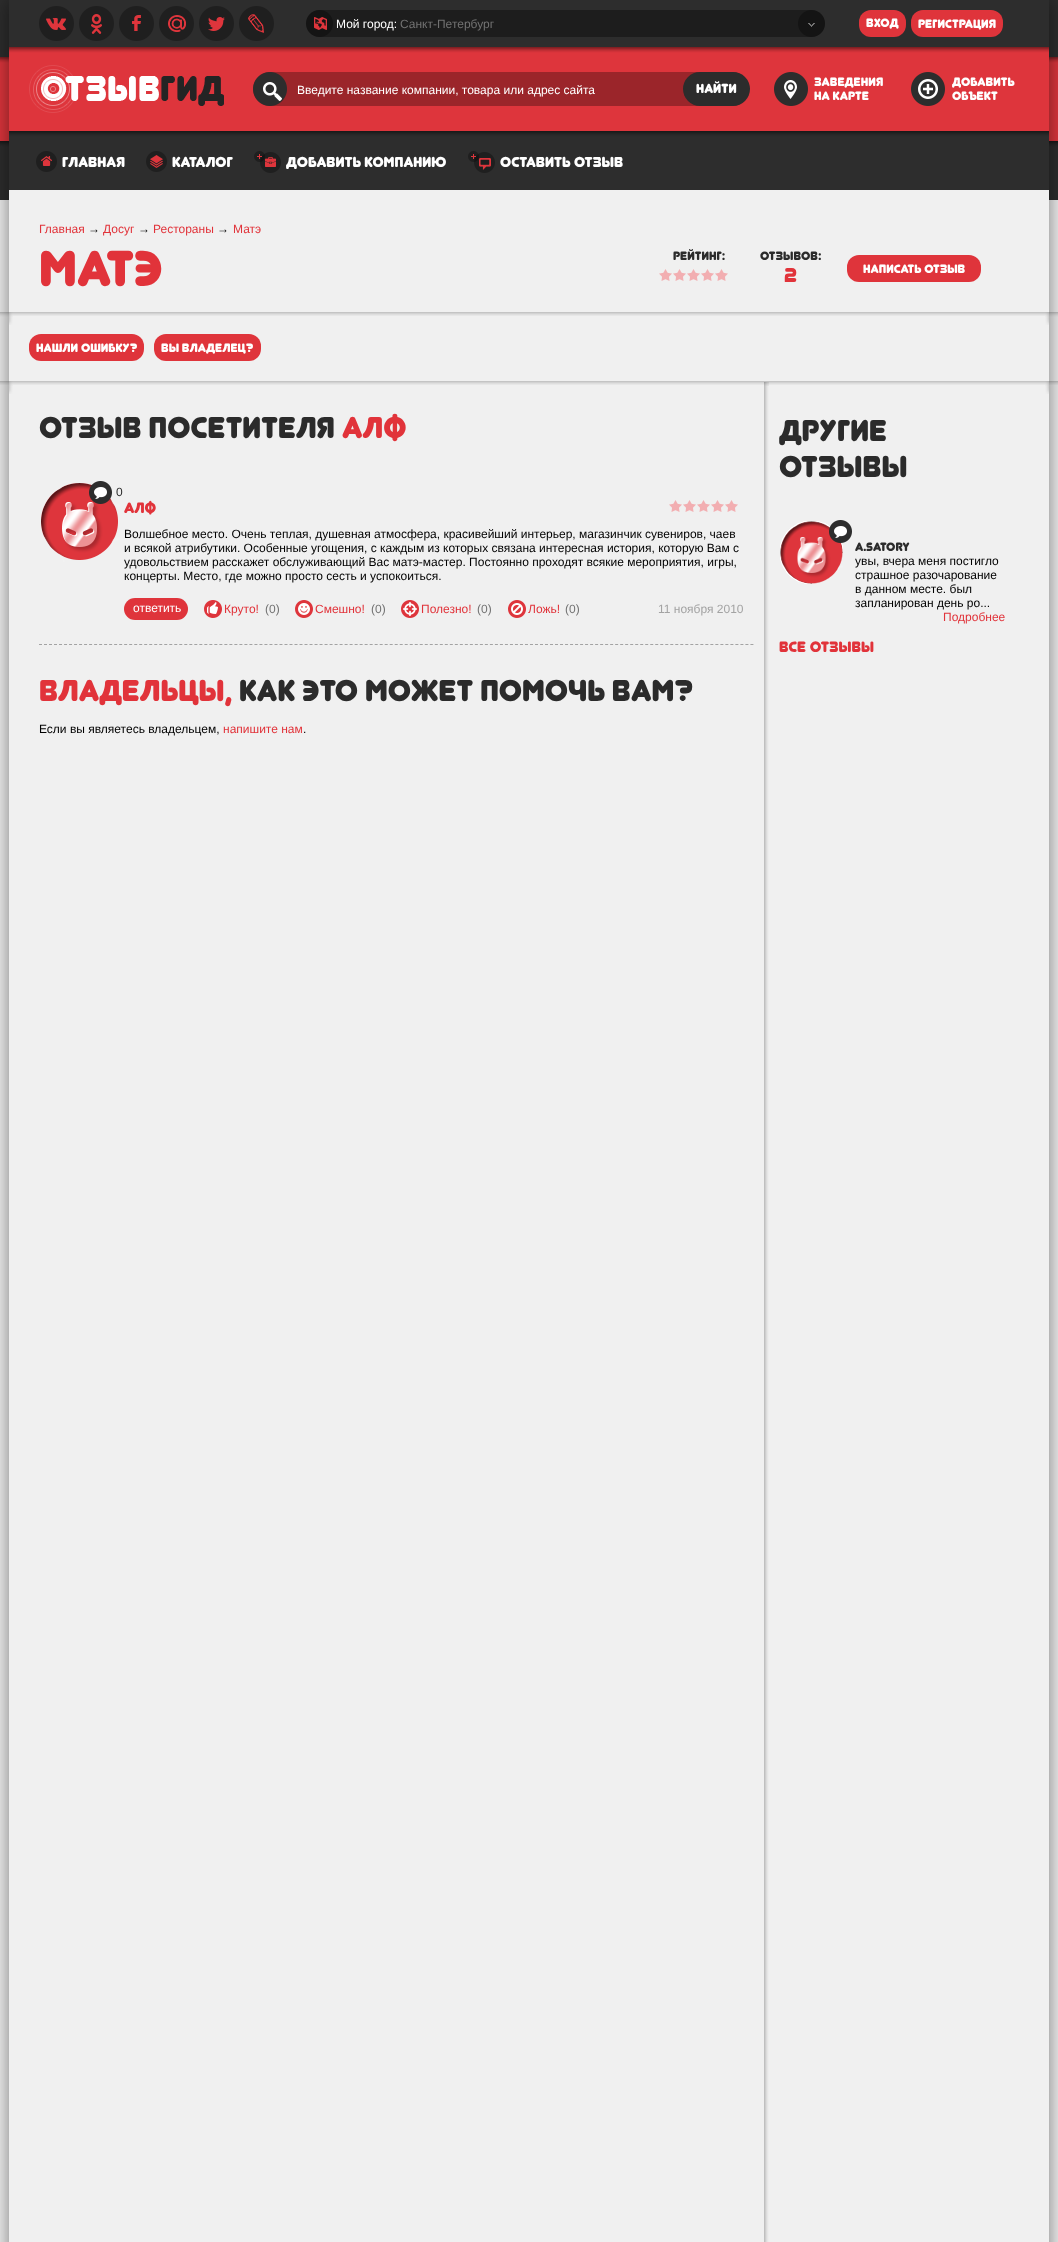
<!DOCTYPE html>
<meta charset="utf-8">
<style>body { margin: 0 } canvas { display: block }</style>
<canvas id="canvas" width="1058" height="2242"></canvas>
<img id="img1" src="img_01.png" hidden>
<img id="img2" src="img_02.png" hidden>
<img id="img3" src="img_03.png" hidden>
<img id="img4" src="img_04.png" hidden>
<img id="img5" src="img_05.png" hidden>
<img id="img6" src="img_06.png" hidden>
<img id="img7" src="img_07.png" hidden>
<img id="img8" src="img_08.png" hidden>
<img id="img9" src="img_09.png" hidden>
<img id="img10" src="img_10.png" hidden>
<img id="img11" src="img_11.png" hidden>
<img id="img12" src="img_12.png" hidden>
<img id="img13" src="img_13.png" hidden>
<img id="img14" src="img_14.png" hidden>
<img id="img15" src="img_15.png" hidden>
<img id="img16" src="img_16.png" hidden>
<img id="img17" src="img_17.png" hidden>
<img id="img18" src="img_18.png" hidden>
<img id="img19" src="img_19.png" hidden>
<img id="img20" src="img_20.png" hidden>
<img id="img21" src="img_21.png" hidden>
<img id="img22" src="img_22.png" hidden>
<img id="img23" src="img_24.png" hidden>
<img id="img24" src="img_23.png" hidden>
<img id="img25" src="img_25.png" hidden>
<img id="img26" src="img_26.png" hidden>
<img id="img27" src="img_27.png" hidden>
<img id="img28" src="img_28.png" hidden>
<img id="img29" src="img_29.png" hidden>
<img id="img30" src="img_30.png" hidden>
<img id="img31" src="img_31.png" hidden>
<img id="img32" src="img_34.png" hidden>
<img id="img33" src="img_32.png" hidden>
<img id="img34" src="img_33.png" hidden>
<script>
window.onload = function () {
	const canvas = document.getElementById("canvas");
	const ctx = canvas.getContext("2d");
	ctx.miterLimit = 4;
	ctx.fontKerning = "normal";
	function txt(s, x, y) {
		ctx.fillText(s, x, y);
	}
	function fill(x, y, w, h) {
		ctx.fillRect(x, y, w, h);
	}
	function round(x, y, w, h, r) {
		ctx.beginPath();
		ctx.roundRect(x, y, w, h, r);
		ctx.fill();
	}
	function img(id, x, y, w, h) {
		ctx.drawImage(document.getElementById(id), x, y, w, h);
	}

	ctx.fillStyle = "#F0F0F0";
	fill(0, 0, 1058, 2242);
	img("img1", 0, 0, 1058, 385);
	ctx.fillStyle = "rgba(0, 0, 0, 0.5)";
	ctx.filter = "blur(10px)";
	ctx.beginPath();
	ctx.rect(9, 0, 1040, 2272);
	ctx.fill();
	ctx.filter = "none";
	ctx.fillStyle = "#F0F0F0";
	fill(9, 190, 1040, 2052);
	img("img2", 9, 0, 1040, 190);
	img("img3", 39, 6, 35, 35);
	img("img4", 79, 6, 35, 35);
	img("img5", 119, 6, 35, 35);
	img("img6", 159, 6, 35, 35);
	img("img7", 199, 6, 35, 35);
	img("img8", 239, 6, 35, 35);
	ctx.fillStyle = "#1D1D1D";
	round(306, 10, 519, 27, 13.5);
	img("img9", 306, 10, 27, 27);
	img("img10", 798, 10, 27, 27);
	ctx.fillStyle = "#DF343B";
	round(859, 10, 47, 27, 12);
	round(911, 10, 92, 27, 12);
	img("img11", 29, 65, 195, 48);
	ctx.fillStyle = "#9B252A";
	round(253, 72, 496, 34, 17);
	img("img12", 253, 72, 34, 34);
	ctx.fillStyle = "#2C2C2C";
	round(683, 72, 67, 34, 17);
	img("img13", 774, 72, 34, 34);
	img("img14", 911, 72, 34, 34);
	img("img15", 36, 151, 21, 21);
	img("img16", 146, 151, 21, 21);
	img("img17", 254, 151, 27, 22);
	img("img18", 468, 151, 27, 22);
	img("img19", 659, 269, 69, 12);
	ctx.fillStyle = "#DF343B";
	round(847, 255, 134, 27, 12);
	img("img20", 9, 312, 4, 13);
	img("img21", 13, 312, 1032, 4);
	img("img22", 1045, 312, 4, 13);
	round(29, 334, 115, 27, 12);
	round(154, 334, 107, 27, 12);
	img("img20", 9, 381, 4, 13);
	img("img21", 13, 381, 1032, 4);
	img("img22", 1045, 381, 4, 13);
	ctx.beginPath();
	ctx.moveTo(39, 644.5);
	ctx.lineTo(754, 644.5);
	ctx.strokeStyle = "#A3A3A3";
	ctx.setLineDash([3, 2.01]);
	ctx.stroke();
	img("img23", 41, 483, 77, 77);
	img("img24", 39, 481, 81, 81);
	img("img25", 89, 481, 23, 23);
	img("img19", 669, 500, 69, 12);
	round(124, 598, 64, 22, 11);
	img("img26", 204, 600, 18, 18);
	img("img27", 295, 600, 18, 18);
	img("img28", 401, 600, 18, 18);
	img("img29", 508, 600, 18, 18);
	img("img30", 764, 386, 5, 1856);
	img("img31", 764, 382, 5, 4);
	img("img32", 780, 521, 63, 63);
	img("img33", 779, 520, 65, 65);
	img("img34", 829, 520, 23, 23);
	ctx.font = "12px Liberation Sans";
	ctx.fillStyle = "#FFFFFF";
	txt("Мой город:", 336, 28);
	ctx.fillStyle = "#727272";
	txt("Санкт-Петербург", 400, 28);
	ctx.font = "12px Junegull";
	ctx.fillStyle = "#FFFFFF";
	txt("вход", 866, 27);
	txt("регистрация", 918, 28);
	ctx.font = "13px Junegull";
	txt("найти", 696, 93);
	ctx.font = "12px Junegull";
	txt("заведения", 814, 86);
	txt("на карте", 814, 100);
	txt("добавить", 952, 86);
	txt("объект", 952, 100);
	ctx.font = "14.4px Junegull";
	txt("главная", 62, 167);
	txt("каталог", 172, 167);
	txt("добавить компанию", 286, 167);
	txt("оставить отзыв", 500, 167);
	ctx.font = "12px Liberation Sans";
	ctx.fillStyle = "#E1333A";
	txt("Главная", 39, 233);
	ctx.fillStyle = "#000000";
	txt("→", 88, 233);
	ctx.fillStyle = "#E1333A";
	txt("Досуг", 103, 233);
	ctx.fillStyle = "#000000";
	txt("→", 138, 233);
	ctx.fillStyle = "#E1333A";
	txt("Рестораны", 153, 233);
	ctx.fillStyle = "#000000";
	txt("→", 217, 233);
	ctx.fillStyle = "#E1333A";
	txt("Матэ", 233, 233);
	ctx.font = "50px Junegull";
	txt("Матэ", 39, 286);
	ctx.font = "12px Junegull";
	ctx.fillStyle = "#2B2B2B";
	txt("рейтинг:", 673, 260);
	txt("отзывов:", 760, 260);
	ctx.font = "20px Junegull";
	ctx.fillStyle = "#E1333A";
	txt("2", 784, 282);
	ctx.font = "12px Junegull";
	ctx.fillStyle = "#FFFFFF";
	txt("написать отзыв", 863, 273);
	txt("нашли ошибку?", 36, 352);
	txt("вы владелец?", 161, 352);
	ctx.font = "30px Junegull";
	ctx.fillStyle = "#2B2B2B";
	txt("отзыв посетителя", 39, 438);
	ctx.fillStyle = "#E1333A";
	txt("АлФ", 342, 438);
	ctx.font = "12px Liberation Sans";
	ctx.fillStyle = "#2B2B2B";
	txt("0", 116, 496);
	ctx.font = "15px Junegull";
	ctx.fillStyle = "#E1333A";
	txt("АлФ", 124, 513);
	ctx.font = "12px Liberation Sans";
	ctx.fillStyle = "#000000";
	txt("Волшебное место. Очень теплая, душевная атмосфера, красивейший интерьер, магазинчик сувениров, чаев", 124, 538);
	txt("и всякой атрибутики. Особенные угощения, с каждым из которых связана интересная история, которую Вам с", 124, 552);
	txt("удовольствием расскажет обслуживающий Вас матэ-мастер. Постоянно проходят всякие мероприятия, игры,", 124, 566);
	txt("концерты. Место, где можно просто сесть и успокоиться.", 124, 580);
	ctx.fillStyle = "#FFFFFF";
	txt("ответить", 133, 612);
	ctx.fillStyle = "#E1333A";
	txt("Круто!", 224, 613);
	ctx.fillStyle = "#727272";
	txt("(0)", 265, 613);
	ctx.fillStyle = "#E1333A";
	txt("Смешно!", 315, 613);
	ctx.fillStyle = "#727272";
	txt("(0)", 371, 613);
	ctx.fillStyle = "#E1333A";
	txt("Полезно!", 421, 613);
	ctx.fillStyle = "#727272";
	txt("(0)", 477, 613);
	ctx.fillStyle = "#E1333A";
	txt("Ложь!", 528, 613);
	ctx.fillStyle = "#727272";
	txt("(0)", 565, 613);
	ctx.fillStyle = "#A3A3A3";
	txt("11 ноября 2010", 658, 613);
	ctx.font = "30px Junegull";
	ctx.fillStyle = "#E1333A";
	txt("Владельцы,", 39, 701);
	ctx.fillStyle = "#2B2B2B";
	txt("как это может помочь вам?", 239, 701);
	ctx.font = "12px Liberation Sans";
	ctx.fillStyle = "#000000";
	txt("Если вы являетесь владельцем,", 39, 733);
	ctx.fillStyle = "#E1333A";
	txt("напишите нам", 223, 733);
	ctx.fillStyle = "#000000";
	txt(".", 303, 733);
	ctx.font = "30px Junegull";
	ctx.fillStyle = "#2B2B2B";
	txt("другие", 779, 441);
	txt("отзывы", 779, 477);
	ctx.font = "12px Junegull";
	txt("a.satory", 855, 551);
	ctx.font = "12px Liberation Sans";
	ctx.fillStyle = "#000000";
	txt("увы, вчера меня постигло", 855, 565);
	txt("страшное разочарование", 855, 579);
	txt("в данном месте. был", 855, 593);
	txt("запланирован день ро...", 855, 607);
	ctx.fillStyle = "#E1333A";
	txt("Подробнее", 943, 621);
	ctx.font = "15px Junegull";
	txt("Все отзывы", 779, 652);
	ctx.font = "12px Liberation Sans";
	ctx.fillStyle = "#FFFFFF";
	txt("Введите название компании, товара или адрес сайта", 297, 94);
};
</script>
